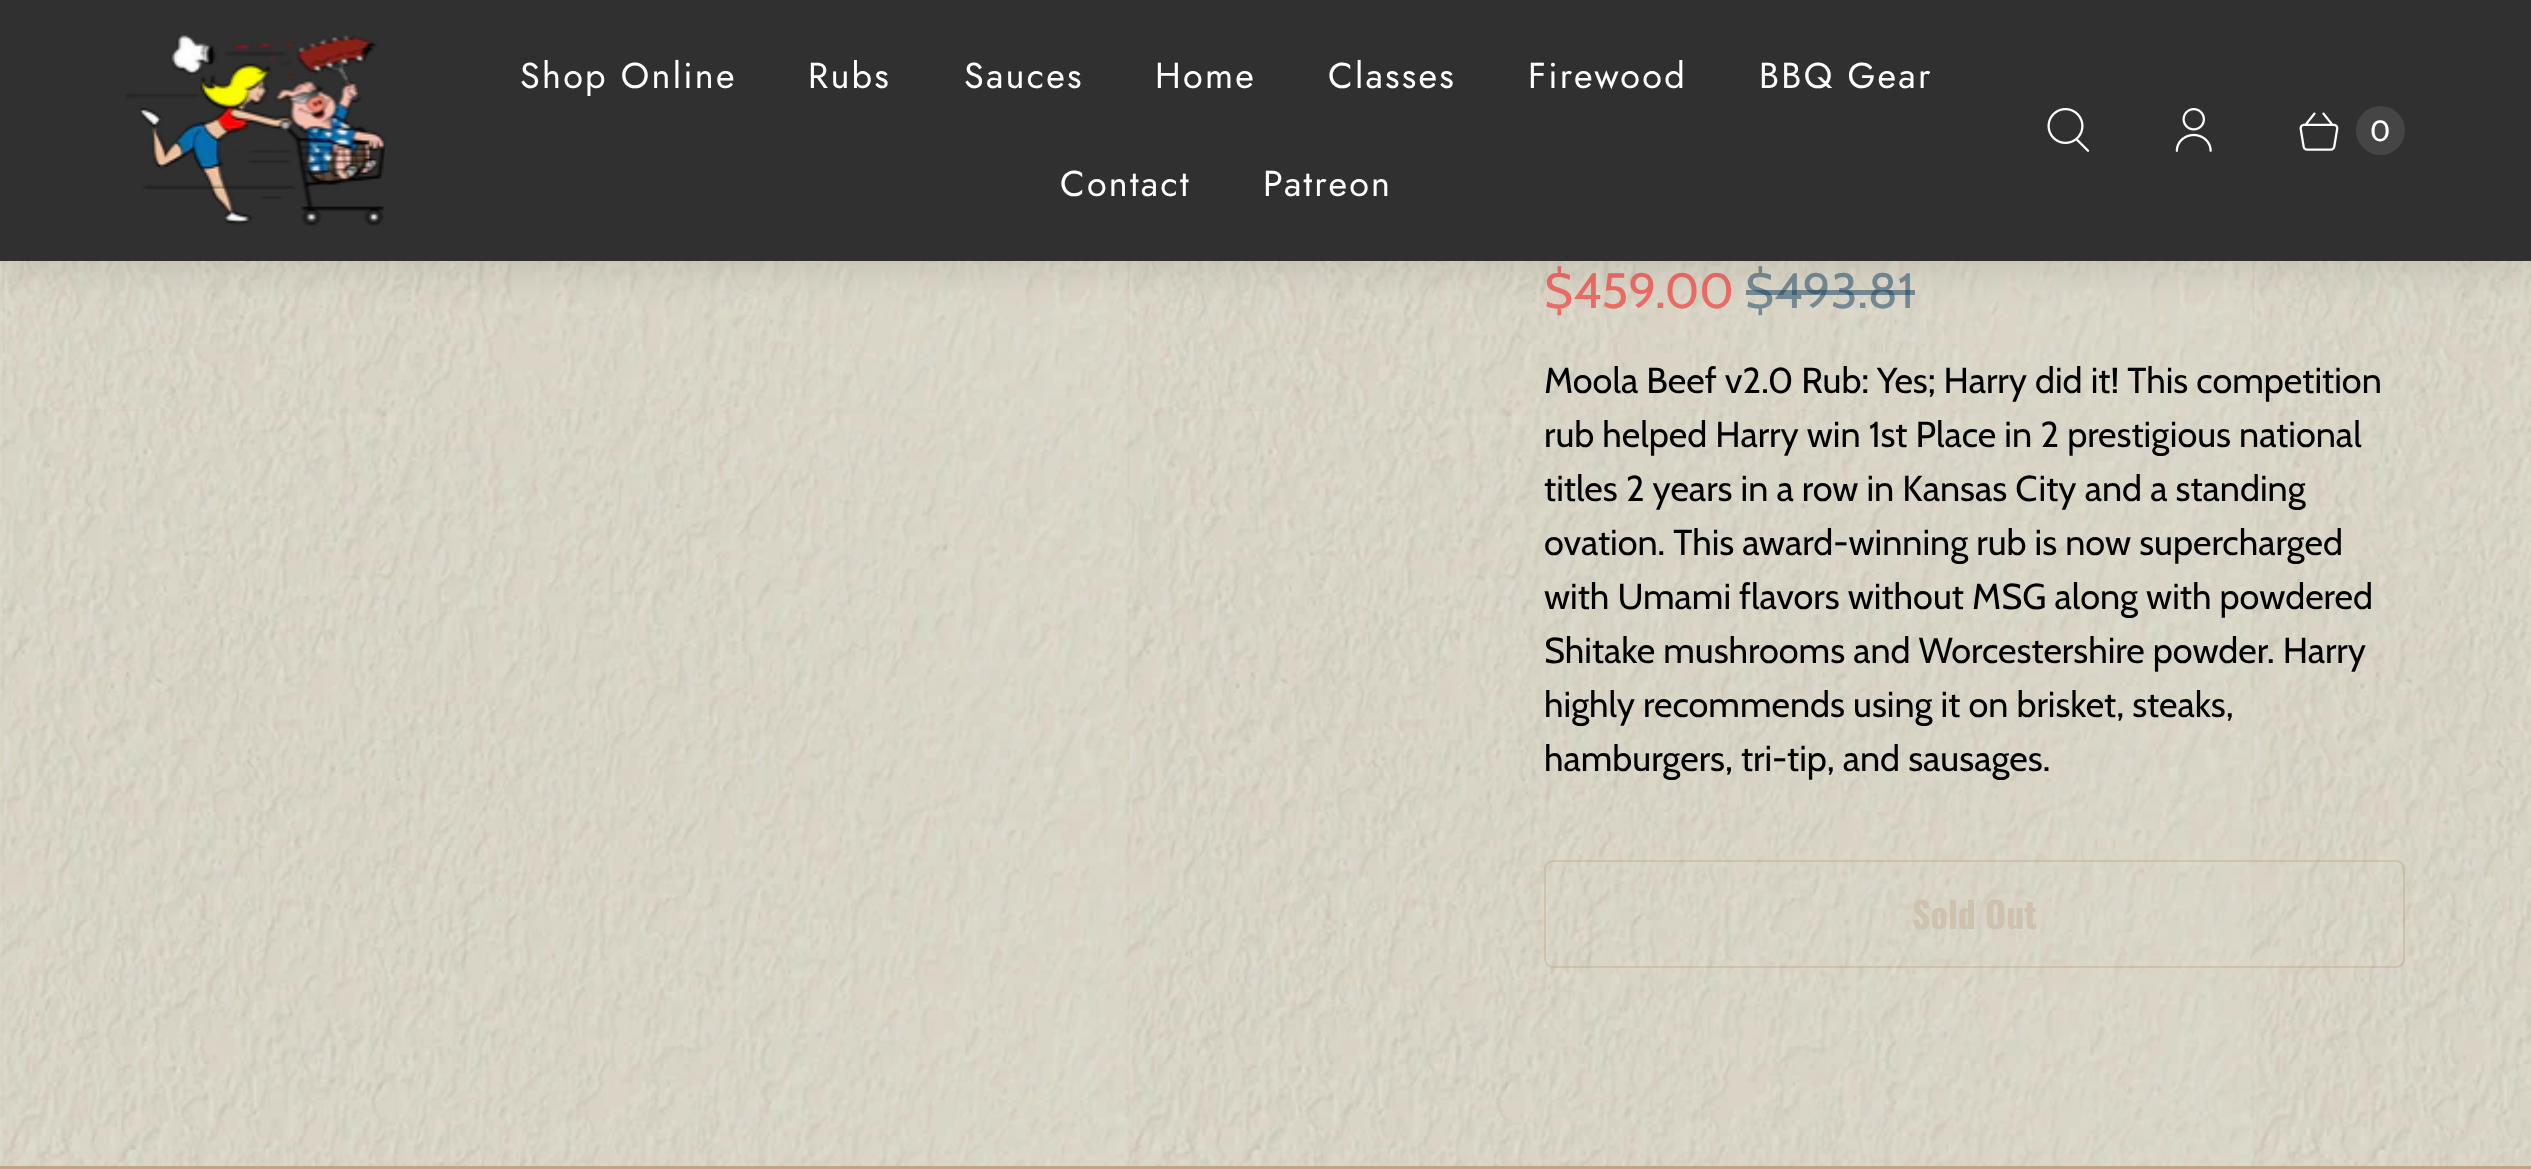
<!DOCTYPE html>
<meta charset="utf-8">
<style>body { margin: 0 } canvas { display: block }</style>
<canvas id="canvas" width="2531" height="1169"></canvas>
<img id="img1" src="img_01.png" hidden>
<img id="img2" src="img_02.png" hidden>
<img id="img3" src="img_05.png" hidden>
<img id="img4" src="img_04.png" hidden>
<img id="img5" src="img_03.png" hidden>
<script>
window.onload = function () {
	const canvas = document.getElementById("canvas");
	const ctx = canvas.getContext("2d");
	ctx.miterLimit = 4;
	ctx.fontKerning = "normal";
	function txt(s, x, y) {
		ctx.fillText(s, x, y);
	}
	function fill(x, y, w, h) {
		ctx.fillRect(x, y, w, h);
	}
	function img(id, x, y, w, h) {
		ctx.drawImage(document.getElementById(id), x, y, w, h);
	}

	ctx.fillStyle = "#FFFFFF";
	fill(0, 0, 2531, 1169);
	img("img1", 0, 261, 2531, 905);
	ctx.beginPath();
	ctx.roundRect(1545, 861, 859, 106, 8);
	ctx.strokeStyle = "rgba(191, 164, 136, 0.4)";
	ctx.lineWidth = 2;
	ctx.stroke();
	ctx.fillStyle = "#BFA488";
	fill(0, 1166, 2531, 3);
	ctx.font = "49.5px Cabin";
	ctx.fillStyle = "#EB6B65";
	txt("$459.00", 1544, 308);
	ctx.fillStyle = "#748992";
	txt("$493.81", 1745, 308);
	ctx.fillStyle = "rgba(15, 62, 94, 0.5)";
	fill(1746, 290, 169, 5);
	ctx.fillStyle = "rgba(0, 0, 0, 0.1)";
	ctx.filter = "blur(18px)";
	ctx.beginPath();
	ctx.rect(-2, -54, 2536, 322);
	ctx.fill();
	ctx.filter = "none";
	ctx.fillStyle = "#303030";
	fill(0, 0, 2531, 261);
	ctx.letterSpacing = "2.25px";
	ctx.font = "36px Jost";
	ctx.fillStyle = "#FFFFFF";
	txt("Patreon", 1263, 196);
	txt("Contact", 1060, 196);
	txt("BBQ Gear", 1759, 88);
	txt("Firewood", 1528, 88);
	txt("Classes", 1328, 88);
	txt("Home", 1155, 88);
	txt("Sauces", 964, 88);
	txt("Rubs", 808, 88);
	txt("Shop Online", 520, 88);
	img("img2", 126, 35, 259, 191);
	img("img3", 2299, 112, 40, 39);
	img("img4", 2175, 108, 37, 44);
	img("img5", 2047, 108, 43, 44);
	ctx.fillStyle = "#454545";
	ctx.beginPath();
	ctx.arc(2380.5, 130.5, 24.5, 0, Math.PI * 2);
	ctx.fill();
	ctx.letterSpacing = "0px";
	ctx.font = "29px Cabin";
	ctx.fillStyle = "#FFFFFF";
	txt("0", 2370, 141);
	ctx.font = "36px Cabin";
	ctx.fillStyle = "#000000";
	txt("Moola Beef v2.0 Rub: Yes; Harry did it! This competition", 1544, 393);
	txt("rub helped Harry win 1st Place in 2 prestigious national", 1544, 447);
	txt("titles 2 years in a row in Kansas City and a standing", 1544, 501);
	txt("ovation. This award-winning rub is now supercharged", 1544, 555);
	txt("with Umami flavors without MSG along with powdered", 1544, 609);
	txt("Shitake mushrooms and Worcestershire powder. Harry", 1544, 663);
	txt("highly recommends using it on brisket, steaks,", 1544, 717);
	txt("hamburgers, tri-tip, and sausages.", 1544, 771);
	ctx.font = "bold 36px Oswald";
	ctx.fillStyle = "#CEC1AD";
	txt("Sold Out", 1912, 929);
};
</script>
